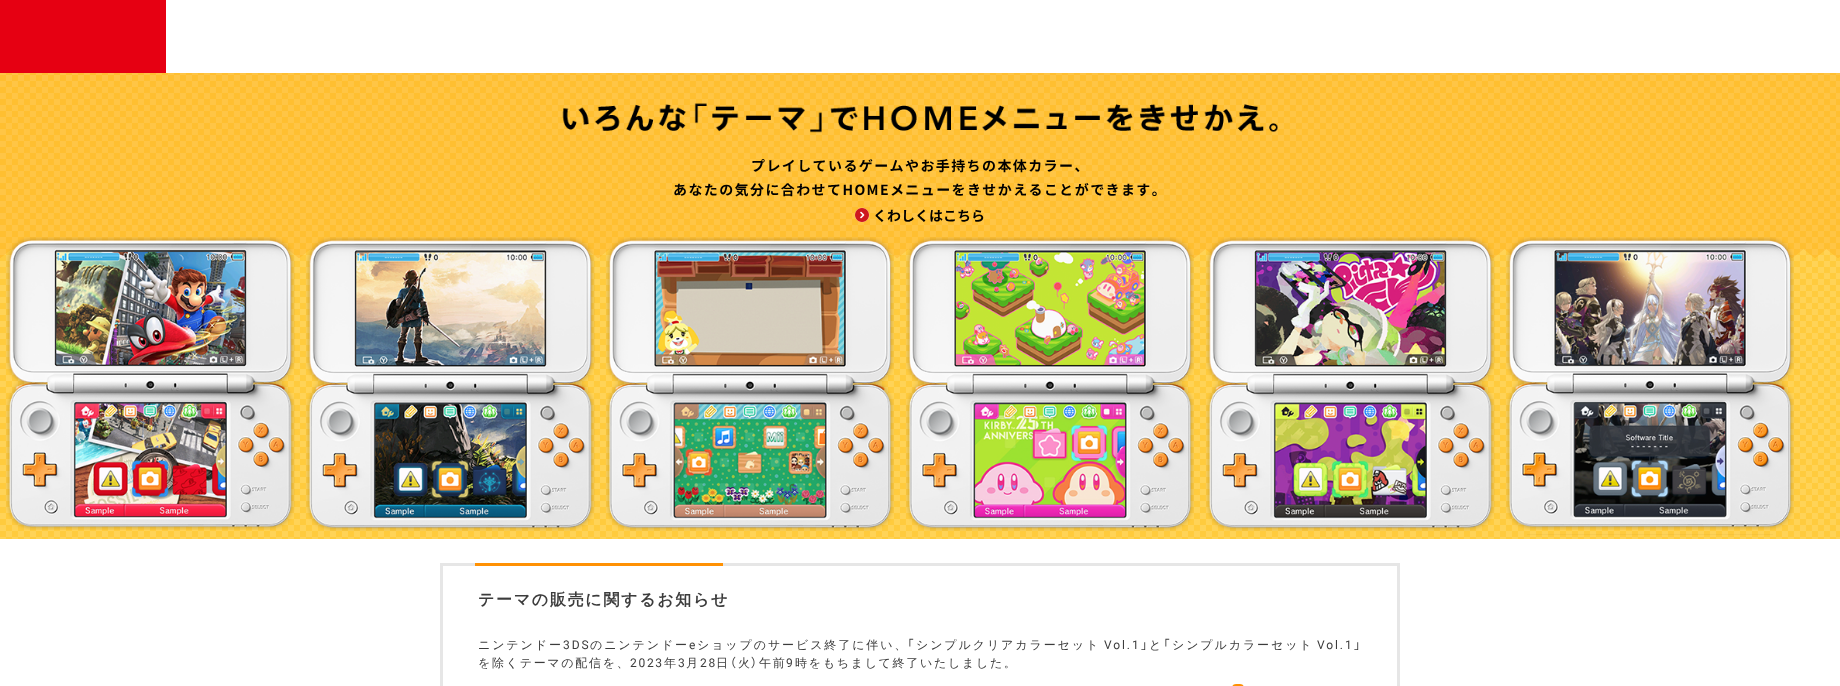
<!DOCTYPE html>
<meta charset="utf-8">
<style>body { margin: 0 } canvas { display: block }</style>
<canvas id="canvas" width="1840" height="686"></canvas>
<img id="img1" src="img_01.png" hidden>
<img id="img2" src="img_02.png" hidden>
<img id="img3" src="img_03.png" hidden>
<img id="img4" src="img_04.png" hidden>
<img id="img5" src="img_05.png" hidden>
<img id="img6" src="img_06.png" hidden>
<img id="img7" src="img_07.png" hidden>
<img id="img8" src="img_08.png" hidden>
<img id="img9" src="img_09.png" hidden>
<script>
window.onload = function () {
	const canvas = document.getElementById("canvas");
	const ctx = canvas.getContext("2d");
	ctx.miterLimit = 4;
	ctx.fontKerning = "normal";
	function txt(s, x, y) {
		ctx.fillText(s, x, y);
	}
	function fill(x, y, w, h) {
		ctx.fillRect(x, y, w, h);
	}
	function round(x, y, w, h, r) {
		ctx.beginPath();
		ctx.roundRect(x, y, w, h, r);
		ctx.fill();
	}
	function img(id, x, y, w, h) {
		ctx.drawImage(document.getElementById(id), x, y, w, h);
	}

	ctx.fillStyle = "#FFFFFF";
	fill(0, 0, 1840, 686);
	ctx.fillStyle = "#E60012";
	fill(0, 0, 166, 73);
	img("img1", 0, 73, 1840, 466);
	img("img2", 562, 103, 716, 30);
	ctx.fillStyle = "#FFFFFF";
	ctx.beginPath();
	ctx.arc(862, 215, 7, 0, Math.PI * 2);
	ctx.fill();
	img("img3", 855, 208, 14, 14);
	img("img4", 6, 237, 289, 293);
	img("img5", 306, 237, 289, 294);
	img("img6", 606, 237, 288, 294);
	img("img7", 906, 237, 288, 294);
	img("img8", 1206, 237, 289, 294);
	img("img9", 1506, 237, 288, 293);
	ctx.fillStyle = "rgba(0, 0, 0, 0.03)";
	fill(1527, 534, 246, 1);
	ctx.strokeStyle = "#E6E6E6";
	ctx.lineWidth = 3;
	ctx.strokeRect(441.5, 564.5, 957, 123);
	ctx.fillStyle = "#FF9103";
	fill(475, 563, 248, 3);
	round(1232, 684, 12, 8, 6);
	ctx.letterSpacing = "1.4px";
	ctx.font = "bold 14px Noto Sans JP";
	ctx.fillStyle = "#000000";
	txt("プレイしているゲームやお手持ちの本体カラー、", 751, 171);
	txt("あなたの気分に合わせてHOMEメニューをきせかえることができます。", 673, 195);
	ctx.letterSpacing = "0px";
	txt("くわしくはこちら", 873, 221);
	ctx.letterSpacing = "1.7px";
	ctx.font = "bold 16px WenQuanYi Zen Hei";
	ctx.fillStyle = "#3C3C3C";
	txt("テーマの販売に関するお知らせ", 478, 605);
	ctx.letterSpacing = "1.9px";
	ctx.font = "500 12px WenQuanYi Zen Hei";
	txt("ニンテンドー", 478, 649);
	ctx.font = "12px Roboto";
	txt("3DS", 563, 649);
	ctx.font = "500 12px WenQuanYi Zen Hei";
	txt("のニンテンドー", 590, 649);
	ctx.font = "12px Roboto";
	txt("e", 689, 649);
	ctx.font = "500 12px WenQuanYi Zen Hei";
	txt("ショップのサービス終了に伴い、", 697, 649);
	ctx.font = "12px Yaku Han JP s";
	txt("「", 907, 649);
	ctx.font = "500 12px WenQuanYi Zen Hei";
	txt("シンプルクリアカラーセット", 916, 649);
	ctx.font = "12px Roboto";
	txt("Vol.1", 1104, 649);
	ctx.font = "12px Yaku Han JP s";
	txt("」", 1141, 649);
	ctx.font = "500 12px WenQuanYi Zen Hei";
	txt("と", 1149, 649);
	ctx.font = "12px Yaku Han JP s";
	txt("「", 1163, 649);
	ctx.font = "500 12px WenQuanYi Zen Hei";
	txt("シンプルカラーセット", 1172, 649);
	ctx.font = "12px Roboto";
	txt("Vol.1", 1317, 649);
	ctx.font = "12px Yaku Han JP s";
	txt("」", 1354, 649);
	ctx.letterSpacing = "1.7px";
	ctx.font = "500 12px WenQuanYi Zen Hei";
	txt("を除くテーマの配信を、", 478, 667);
	ctx.font = "12px Roboto";
	txt("2023", 630, 667);
	ctx.font = "500 12px WenQuanYi Zen Hei";
	txt("年", 664, 667);
	ctx.font = "12px Roboto";
	txt("3", 678, 667);
	ctx.font = "500 12px WenQuanYi Zen Hei";
	txt("月", 686, 667);
	ctx.font = "12px Roboto";
	txt("28", 700, 667);
	ctx.font = "500 12px WenQuanYi Zen Hei";
	txt("日", 716, 667);
	ctx.font = "12px Yaku Han JP s";
	txt("（", 730, 667);
	ctx.font = "500 12px WenQuanYi Zen Hei";
	txt("火", 738, 667);
	ctx.font = "12px Yaku Han JP s";
	txt("）", 751, 667);
	ctx.font = "500 12px WenQuanYi Zen Hei";
	txt("午前", 759, 667);
	ctx.font = "12px Roboto";
	txt("9", 786, 667);
	ctx.font = "500 12px WenQuanYi Zen Hei";
	txt("時をもちまして終了いたしました。", 795, 667);
};
</script>
